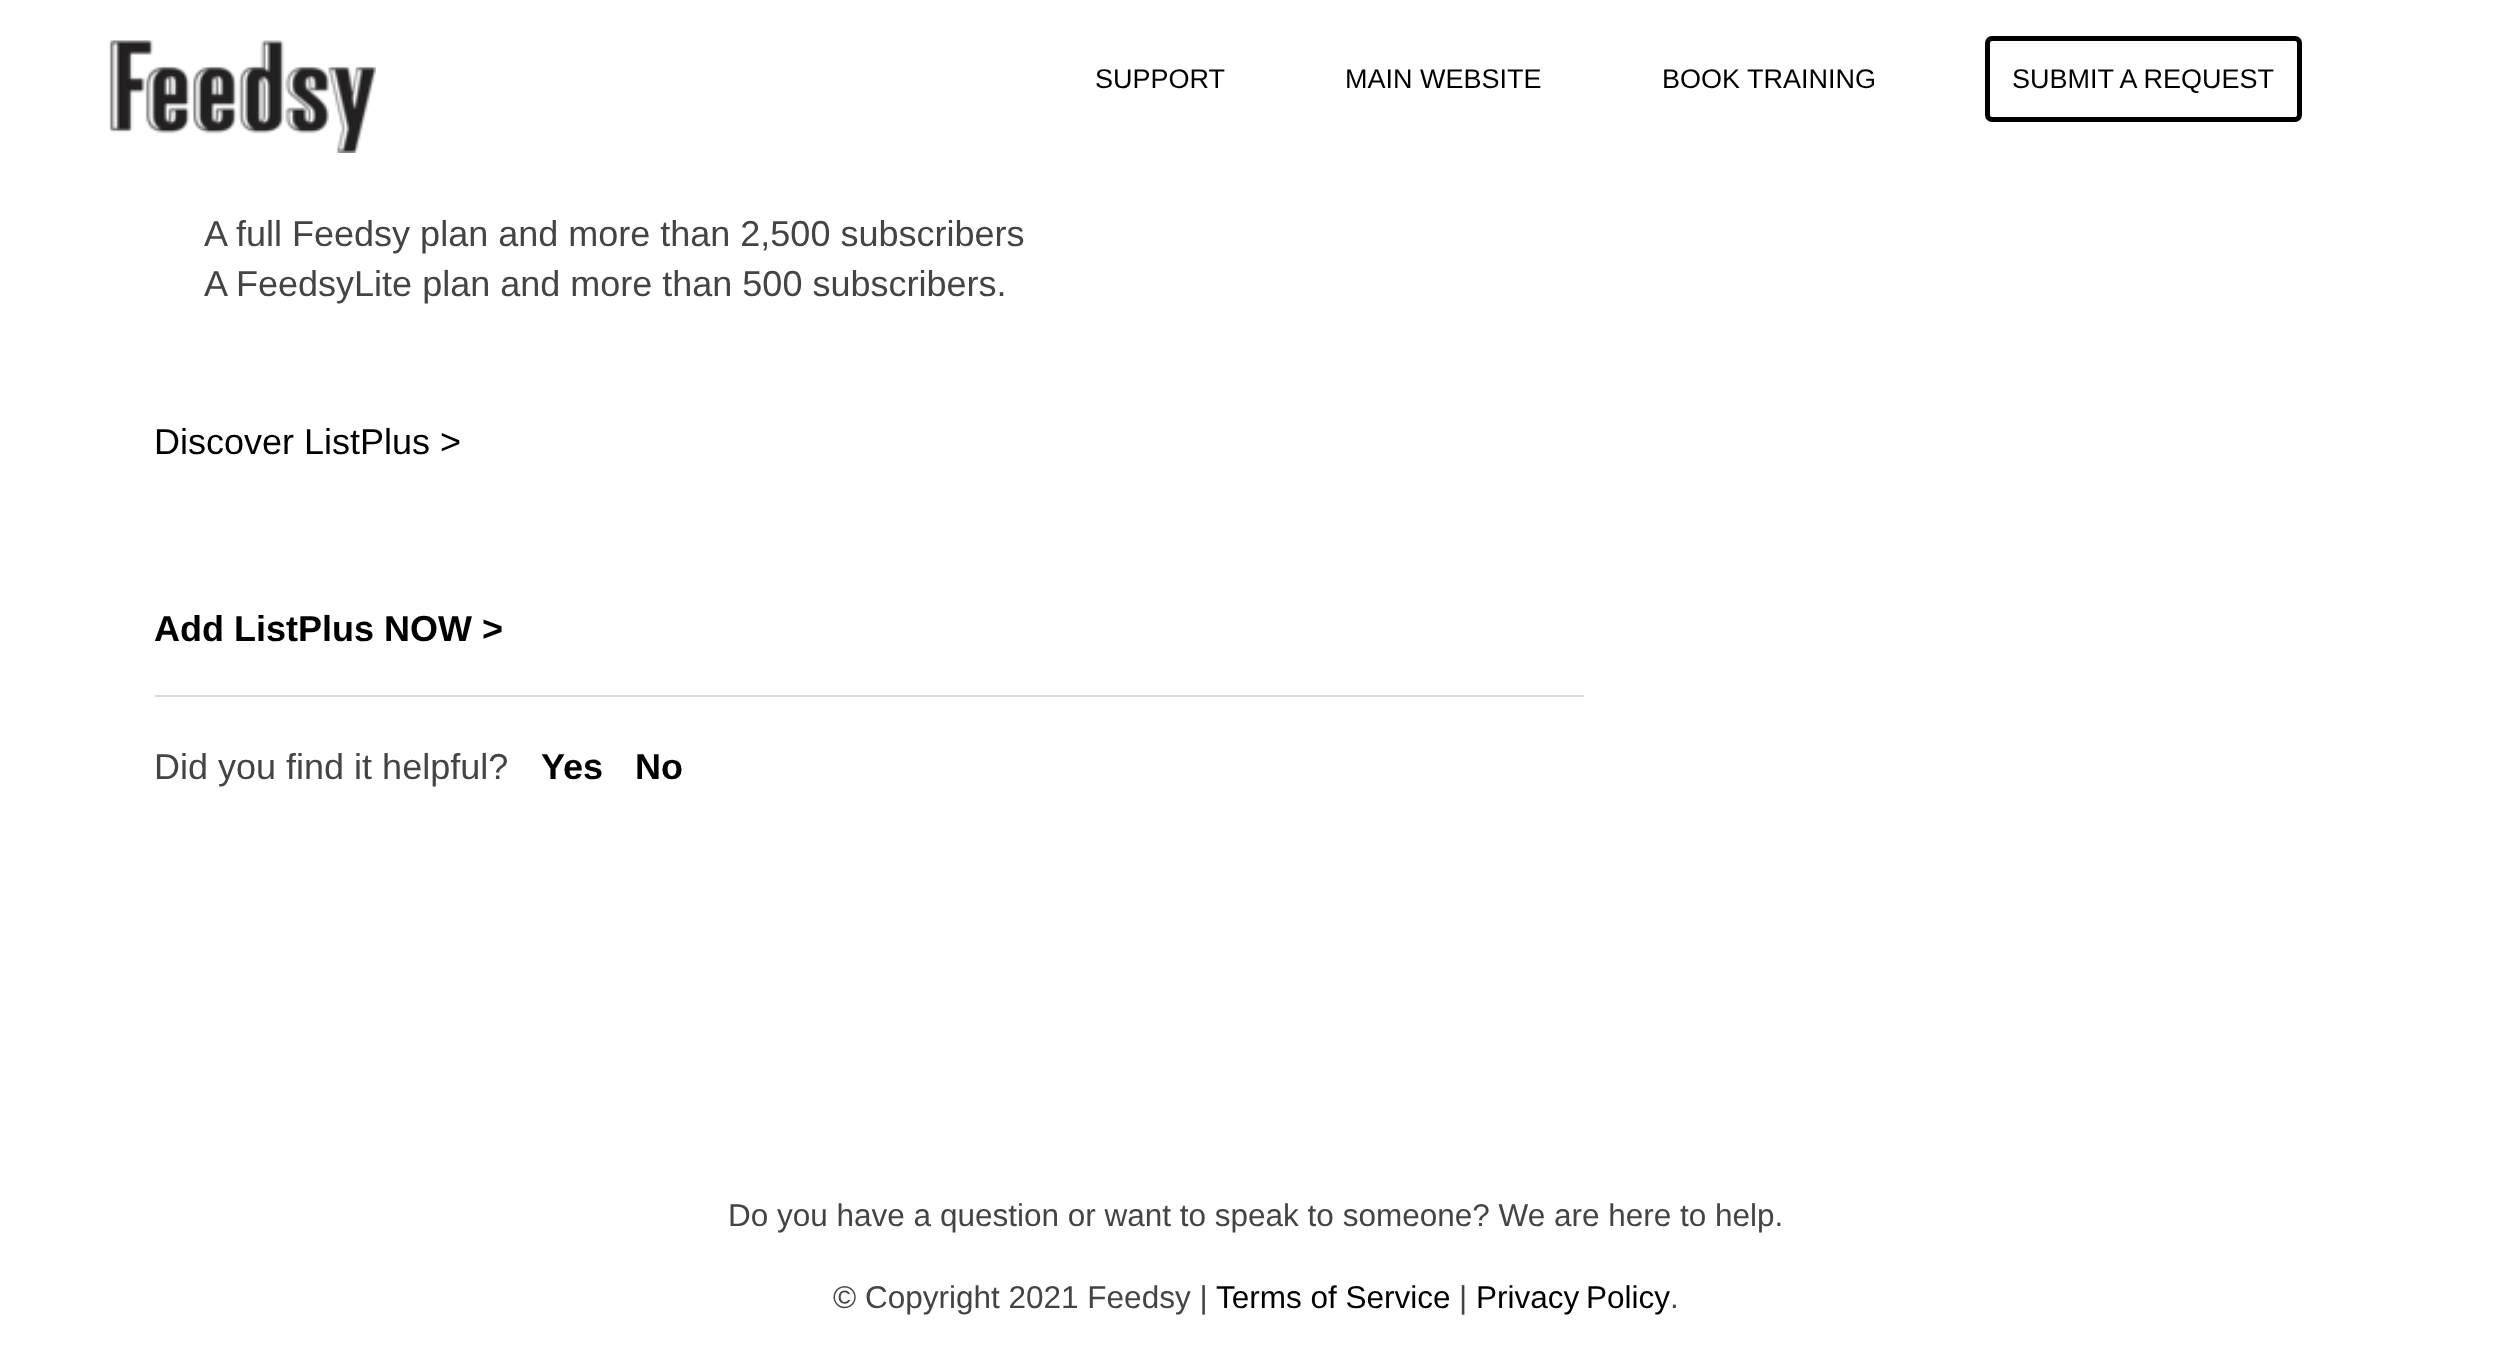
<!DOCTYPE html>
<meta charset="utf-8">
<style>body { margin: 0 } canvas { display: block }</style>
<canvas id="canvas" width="2511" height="1363"></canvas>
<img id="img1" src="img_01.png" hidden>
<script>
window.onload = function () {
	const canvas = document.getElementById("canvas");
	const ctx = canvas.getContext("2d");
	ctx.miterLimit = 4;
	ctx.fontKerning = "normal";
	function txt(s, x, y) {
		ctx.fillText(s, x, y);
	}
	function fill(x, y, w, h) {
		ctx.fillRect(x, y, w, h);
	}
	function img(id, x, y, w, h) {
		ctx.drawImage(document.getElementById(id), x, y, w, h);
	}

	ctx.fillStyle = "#FFFFFF";
	fill(0, 0, 2511, 1363);
	img("img1", 109, 40, 267, 113);
	ctx.beginPath();
	ctx.roundRect(1987.5, 38.5, 312, 81, 4.5);
	ctx.strokeStyle = "#000000";
	ctx.lineWidth = 5;
	ctx.stroke();
	ctx.fillStyle = "#DCDCDC";
	fill(155, 695, 1429, 2);
	ctx.font = "27px Liberation Sans";
	ctx.fillStyle = "#000000";
	txt("SUPPORT", 1095, 88);
	txt("MAIN WEBSITE", 1345, 88);
	txt("BOOK TRAINING", 1662, 88);
	txt("SUBMIT A REQUEST", 2012, 88);
	ctx.font = "36px Liberation Sans";
	ctx.fillStyle = "#444444";
	txt("A full Feedsy plan and more than 2,500 subscribers", 204, 246);
	txt("A FeedsyLite plan and more than 500 subscribers.", 204, 296);
	ctx.fillStyle = "#000000";
	txt("Discover ListPlus >", 154, 454);
	ctx.font = "bold 36px Liberation Sans";
	txt("Add ListPlus NOW >", 154, 641);
	ctx.font = "36px Liberation Sans";
	ctx.fillStyle = "#444444";
	txt("Did you find it helpful?", 154, 779);
	ctx.font = "bold 36px Liberation Sans";
	ctx.fillStyle = "#000000";
	txt("Yes", 541, 779);
	txt("No", 635, 779);
	ctx.font = "31.5px Liberation Sans";
	ctx.fillStyle = "#444444";
	txt("Do you have a question or want to speak to someone? We are here to help.", 728, 1226);
	txt("© Copyright 2021 Feedsy |", 833, 1308);
	ctx.fillStyle = "#000000";
	txt("Terms of Service", 1216, 1308);
	ctx.fillStyle = "#444444";
	txt("|", 1459, 1308);
	ctx.wordSpacing = "-2px";
	ctx.fillStyle = "#000000";
	txt("Privacy Policy", 1476, 1308);
	ctx.wordSpacing = "0px";
	ctx.fillStyle = "#444444";
	txt(".", 1670, 1308);
};
</script>
